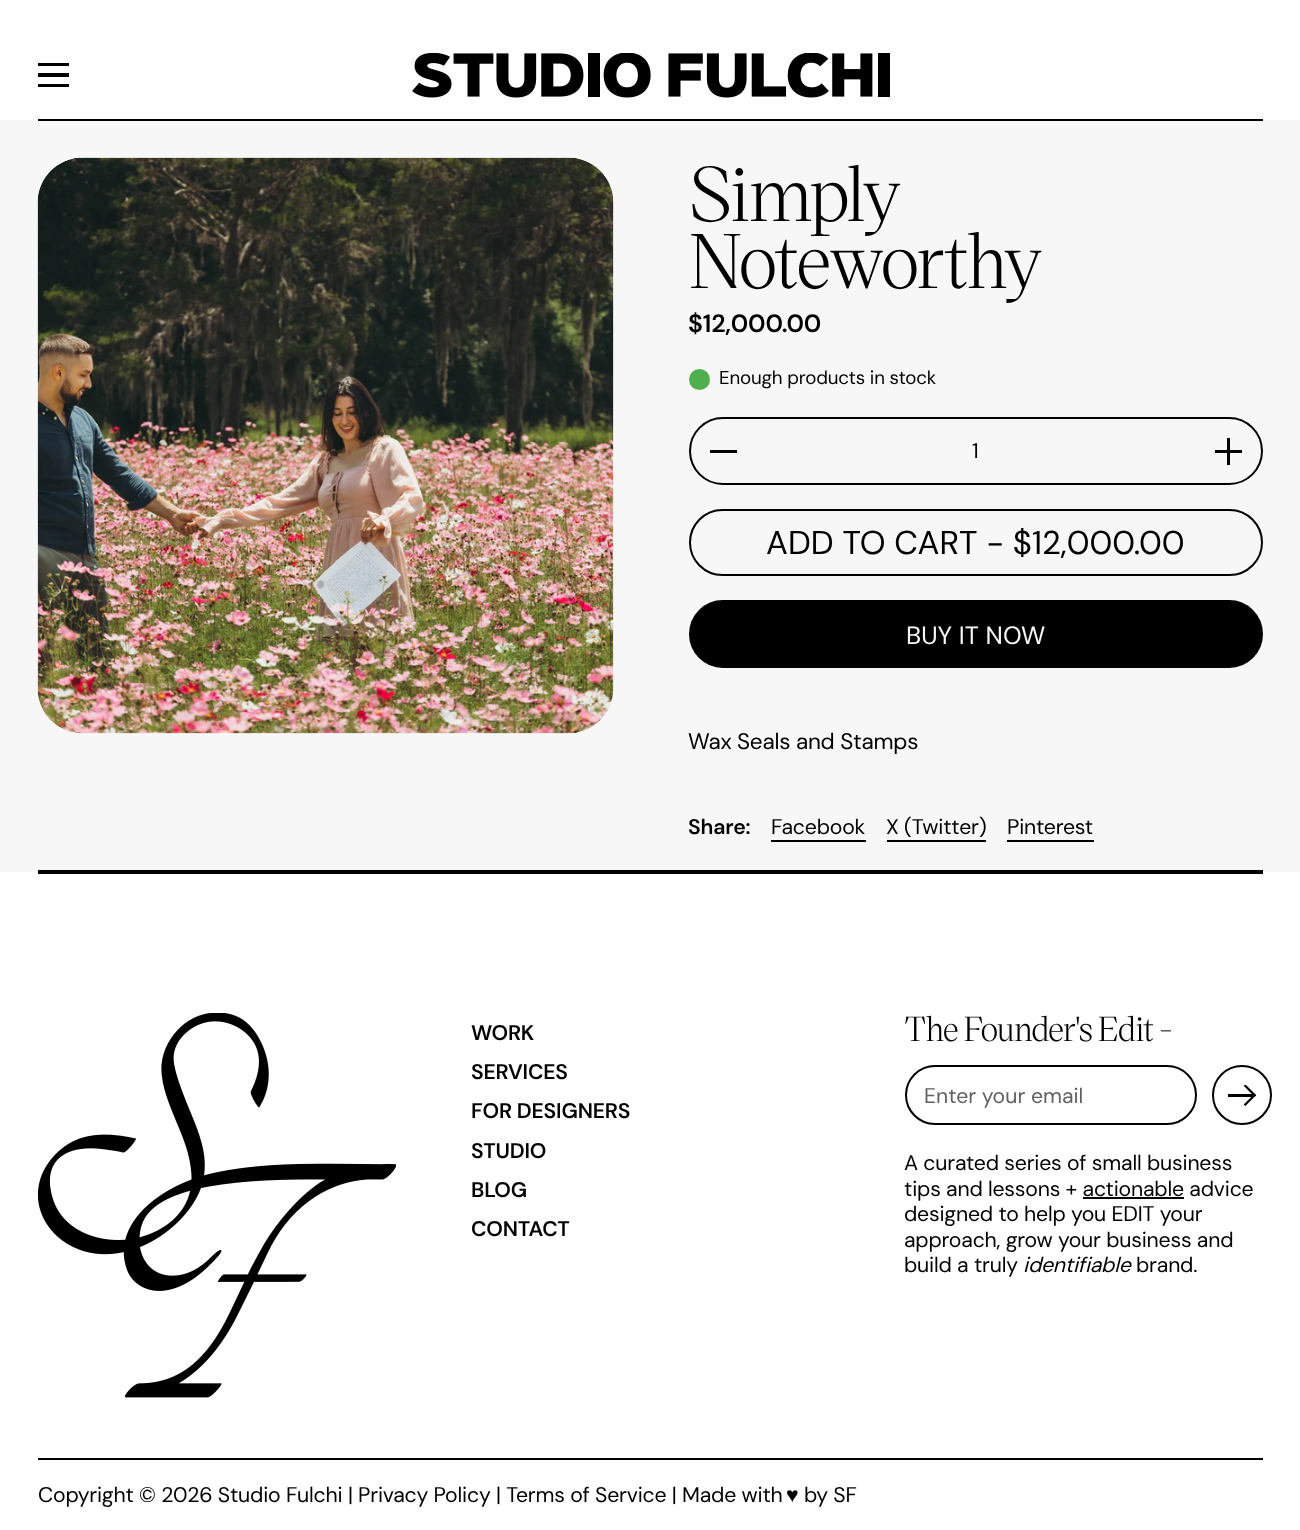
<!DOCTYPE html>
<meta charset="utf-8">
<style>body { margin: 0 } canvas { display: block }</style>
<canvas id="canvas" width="1300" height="1530"></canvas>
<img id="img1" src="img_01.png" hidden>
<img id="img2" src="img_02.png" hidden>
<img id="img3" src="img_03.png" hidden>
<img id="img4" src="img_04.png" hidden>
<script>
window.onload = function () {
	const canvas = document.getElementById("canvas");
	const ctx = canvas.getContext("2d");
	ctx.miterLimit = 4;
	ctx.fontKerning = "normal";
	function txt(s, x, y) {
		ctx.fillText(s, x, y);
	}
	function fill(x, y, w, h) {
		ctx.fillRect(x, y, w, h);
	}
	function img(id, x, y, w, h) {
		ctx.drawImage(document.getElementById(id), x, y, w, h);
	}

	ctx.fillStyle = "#FFFFFF";
	fill(0, 0, 1300, 1530);
	ctx.fillStyle = "#000000";
	fill(38, 63, 31, 3);
	fill(38, 73, 31, 4);
	fill(38, 84, 31, 3);
	img("img1", 412, 53, 478, 45);
	ctx.fillStyle = "#F7F7F7";
	fill(0, 120, 1300, 752);
	ctx.fillStyle = "#000000";
	fill(38, 119, 1225, 2);
	img("img2", 37, 157, 577, 577);
	ctx.fillStyle = "#4FAF4D";
	ctx.beginPath();
	ctx.arc(699.5, 379.5, 10.5, 0, Math.PI * 2);
	ctx.fill();
	ctx.beginPath();
	ctx.roundRect(690, 418, 572, 66, 33);
	ctx.strokeStyle = "#000000";
	ctx.lineWidth = 2;
	ctx.stroke();
	ctx.fillStyle = "#000000";
	fill(710, 450, 27, 3);
	fill(1215, 450, 15, 3);
	fill(1227, 450, 3, 15);
	fill(1227, 450, 15, 3);
	fill(1227, 438, 3, 15);
	ctx.beginPath();
	ctx.roundRect(690, 510, 572, 65, 32.5);
	ctx.stroke();
	ctx.beginPath();
	ctx.roundRect(690.5, 601.5, 571, 65, 32.5);
	ctx.fill();
	ctx.lineWidth = 3;
	ctx.stroke();
	fill(771, 840, 95, 2);
	fill(887, 840, 99, 2);
	fill(1007, 840, 87, 2);
	fill(38, 870, 1225, 4);
	img("img3", 38, 1013, 358, 385);
	ctx.beginPath();
	ctx.roundRect(906, 1066, 290, 58, 29);
	ctx.lineWidth = 2;
	ctx.stroke();
	ctx.beginPath();
	ctx.arc(1242, 1095, 29, 0, Math.PI * 2);
	ctx.stroke();
	img("img4", 1228, 1085, 28, 21);
	fill(1083, 1197, 101, 2);
	fill(38, 1458, 1225, 2);
	ctx.letterSpacing = "-1.5px";
	ctx.font = "75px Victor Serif";
	txt("Simply", 688, 221);
	txt("Noteworthy", 688, 288);
	ctx.letterSpacing = "-0.2px";
	ctx.font = "600 25px DM Sans";
	txt("$12,000.00", 688, 332);
	ctx.font = "18.75px DM Sans";
	txt("Enough products in stock", 719, 384);
	ctx.letterSpacing = "0px";
	ctx.font = "21.25px 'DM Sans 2'";
	txt("1", 972, 458);
	ctx.font = "33px 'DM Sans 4'";
	txt("ADD TO CART - $12,000.00", 766, 554);
	ctx.font = "25px 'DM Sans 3'";
	ctx.fillStyle = "#F7F7F7";
	txt("BUY IT NOW", 906, 644);
	ctx.letterSpacing = "-0.25px";
	ctx.font = "22.5px 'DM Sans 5'";
	ctx.fillStyle = "#000000";
	txt("Wax Seals and Stamps", 688, 749);
	ctx.letterSpacing = "-0.2px";
	ctx.font = "600 21.25px 'DM Sans 2'";
	txt("Share:", 688, 834);
	ctx.font = "21.25px 'DM Sans 2'";
	txt("Facebook", 771, 834);
	txt("X (Twitter)", 886, 834);
	txt("Pinterest", 1007, 834);
	ctx.font = "600 21.25px 'DM Sans 2'";
	txt("WORK", 471, 1040);
	txt("SERVICES", 471, 1079);
	txt("FOR DESIGNERS", 471, 1118);
	txt("STUDIO", 471, 1158);
	txt("BLOG", 471, 1197);
	txt("CONTACT", 471, 1236);
	ctx.letterSpacing = "-0.7px";
	ctx.font = "33.75px Victor Serif";
	txt("The Founder's Edit -", 904, 1041);
	ctx.letterSpacing = "0px";
	ctx.font = "21.25px 'DM Sans 2'";
	ctx.fillStyle = "#616161";
	txt("Enter your email", 924, 1103);
	ctx.letterSpacing = "-0.2px";
	ctx.fillStyle = "#000000";
	txt("A curated series of small business", 904, 1170);
	txt("tips and lessons + actionable advice", 904, 1196);
	txt("designed to help you EDIT your", 904, 1221);
	txt("approach, grow your business and", 904, 1247);
	txt("build a truly", 904, 1272);
	ctx.font = "italic 21.25px DM Sans";
	txt("identifiable", 1023, 1272);
	ctx.font = "21.25px 'DM Sans 2'";
	txt("brand.", 1136, 1272);
	txt("Copyright © 2026 Studio Fulchi | Privacy Policy | Terms of Service | Made with", 38, 1502);
	ctx.font = "21.25px Liberation Sans";
	txt("♥", 786, 1502);
	ctx.font = "21.25px 'DM Sans 2'";
	txt("by SF", 804, 1502);
};
</script>
